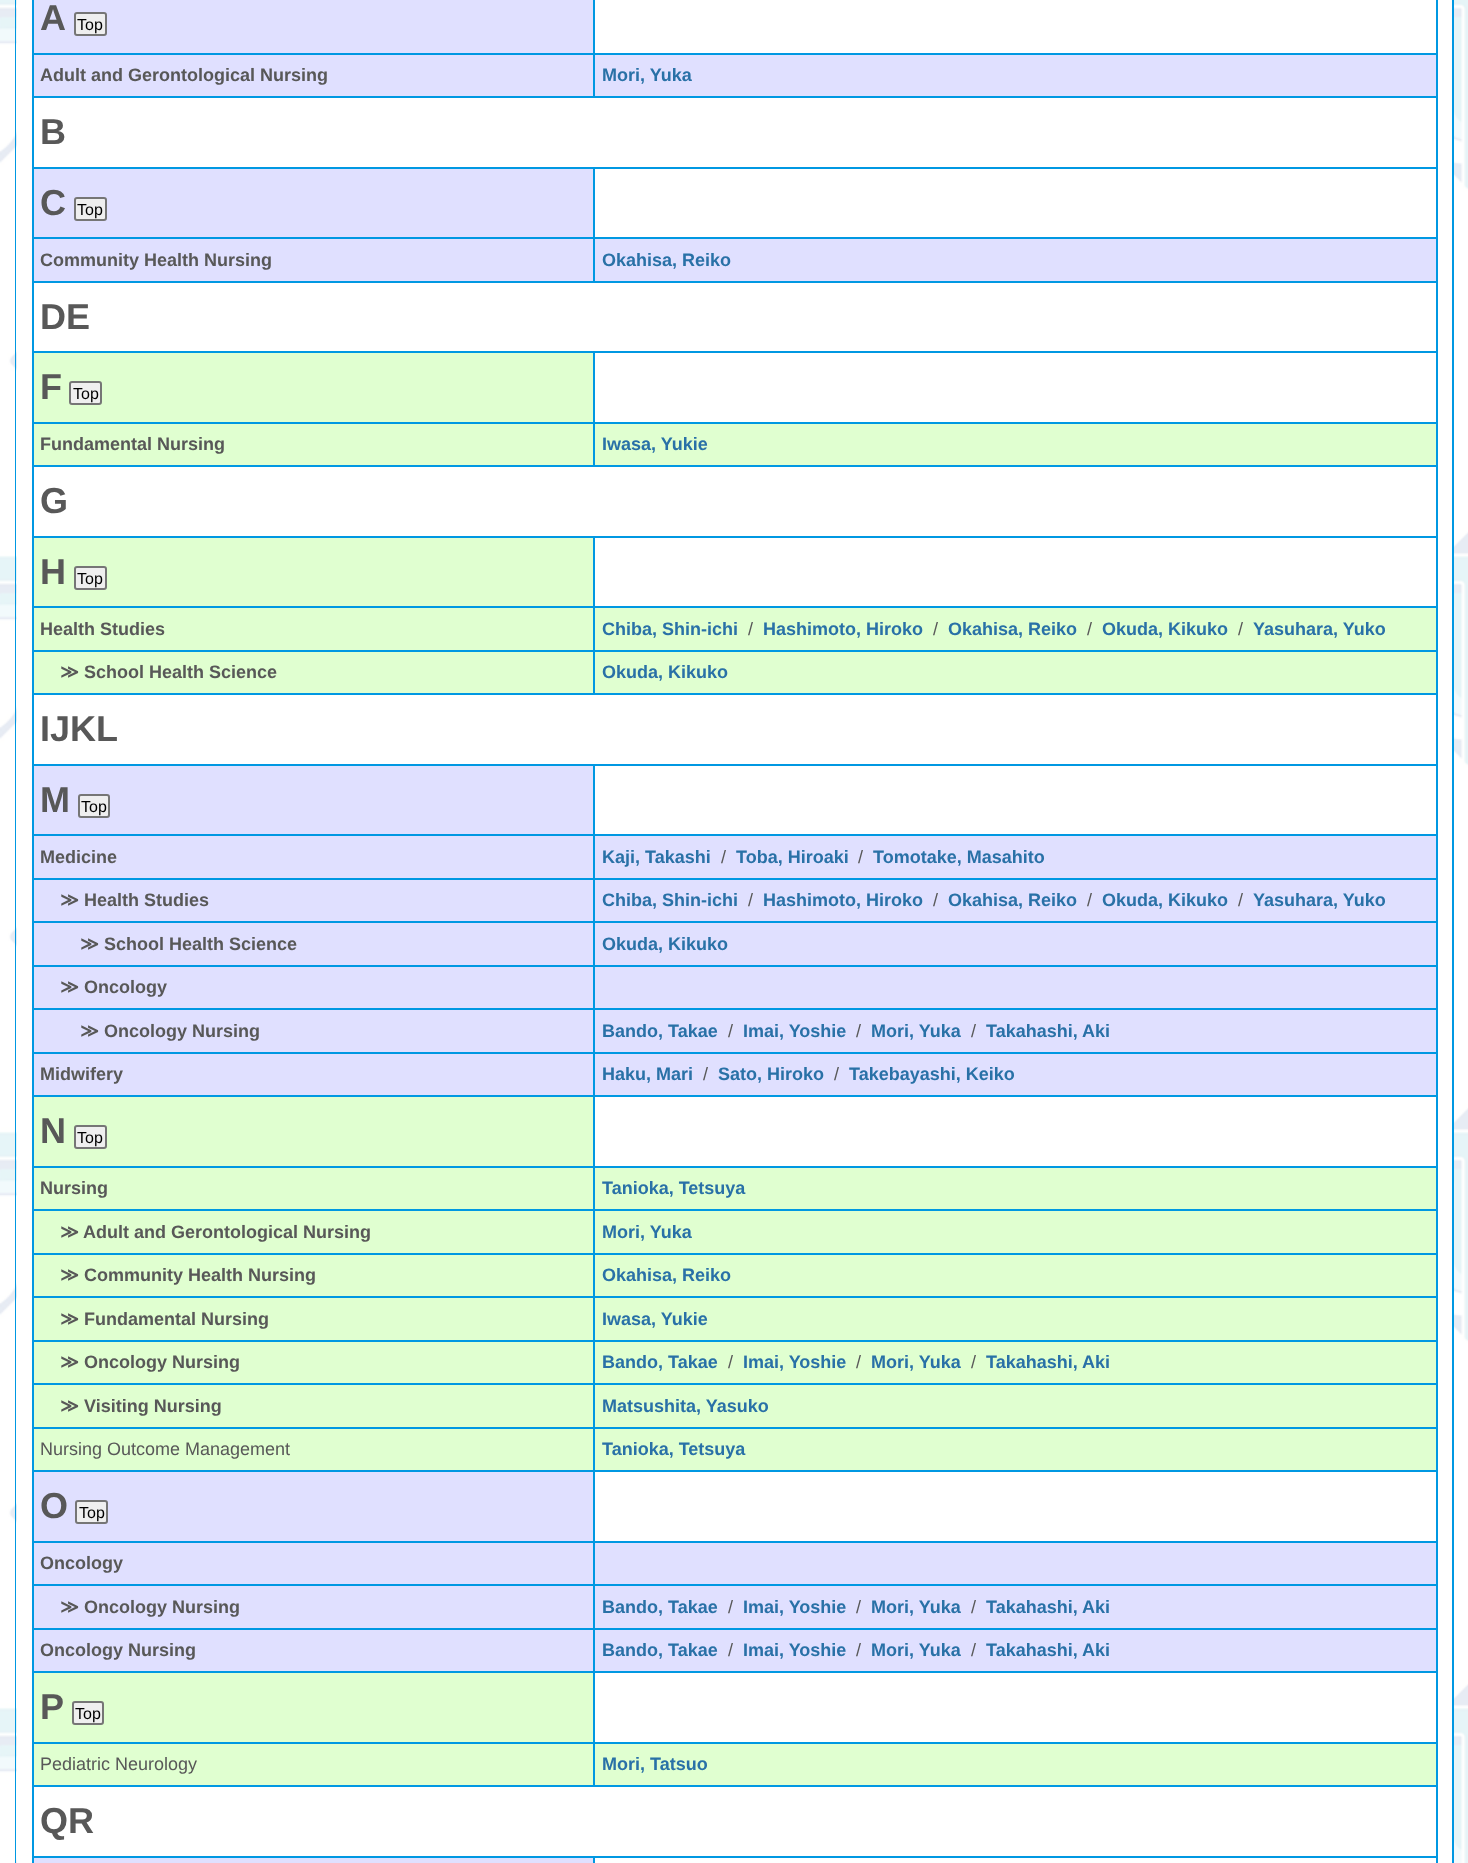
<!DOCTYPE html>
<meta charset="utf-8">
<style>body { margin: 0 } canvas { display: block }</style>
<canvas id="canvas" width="1468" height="1863"></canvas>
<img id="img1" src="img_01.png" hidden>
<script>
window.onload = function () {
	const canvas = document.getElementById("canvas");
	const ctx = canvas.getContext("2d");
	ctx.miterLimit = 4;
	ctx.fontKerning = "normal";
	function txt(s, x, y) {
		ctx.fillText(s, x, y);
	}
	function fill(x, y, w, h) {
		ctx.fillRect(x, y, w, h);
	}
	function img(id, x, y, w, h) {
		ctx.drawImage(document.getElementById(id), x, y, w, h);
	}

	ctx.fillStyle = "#FFFFFF";
	fill(0, 0, 1468, 1863);
	img("img1", 0, 0, 1468, 1863);
	fill(17, 0, 1435, 1863);
	ctx.fillStyle = "#0098E2";
	ctx.beginPath();
	ctx.moveTo(15, -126);
	ctx.lineTo(1454, -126);
	ctx.lineTo(1454, 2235);
	ctx.bezierCurveTo(1454, 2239, 1450, 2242, 1446, 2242);
	ctx.lineTo(22, 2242);
	ctx.bezierCurveTo(18, 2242, 15, 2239, 15, 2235);
	ctx.closePath();
	ctx.moveTo(16, -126);
	ctx.lineTo(1452, -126);
	ctx.lineTo(1452, 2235);
	ctx.bezierCurveTo(1452, 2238, 1449, 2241, 1446, 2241);
	ctx.lineTo(22, 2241);
	ctx.bezierCurveTo(19, 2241, 16, 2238, 16, 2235);
	ctx.closePath();
	ctx.fill("evenodd");
	ctx.fillStyle = "#E0E0FF";
	fill(34, 0, 559, 53);
	ctx.fillStyle = "#EFEFEF";
	ctx.beginPath();
	ctx.roundRect(75, 13, 31, 22, 2);
	ctx.fill();
	ctx.strokeStyle = "#767676";
	ctx.lineWidth = 2;
	ctx.stroke();
	ctx.fillStyle = "#0098E2";
	fill(593, 53, 844, 2);
	ctx.fillStyle = "#E0E0FF";
	fill(34, 55, 1402, 41);
	ctx.fillStyle = "#0098E2";
	fill(32, 96, 1405, 2);
	fill(593, 53, 2, 45);
	fill(32, 53, 562, 2);
	fill(593, 0, 2, 54);
	fill(593, 167, 844, 2);
	fill(593, 237, 844, 2);
	ctx.fillStyle = "#E0E0FF";
	fill(34, 239, 1402, 42);
	ctx.fillStyle = "#0098E2";
	fill(32, 281, 1405, 2);
	fill(593, 237, 2, 45);
	fill(32, 237, 562, 2);
	fill(593, 167, 2, 72);
	fill(32, 167, 562, 2);
	fill(593, 351, 844, 2);
	fill(593, 422, 844, 2);
	ctx.fillStyle = "#E0FFD0";
	fill(34, 424, 1402, 41);
	ctx.fillStyle = "#0098E2";
	fill(32, 465, 1405, 2);
	fill(593, 422, 2, 45);
	fill(32, 422, 562, 2);
	fill(593, 351, 2, 72);
	fill(32, 351, 562, 2);
	fill(593, 536, 844, 2);
	fill(593, 606, 844, 2);
	ctx.fillStyle = "#E0FFD0";
	fill(34, 608, 1402, 42);
	ctx.fillStyle = "#0098E2";
	fill(593, 650, 844, 2);
	ctx.fillStyle = "#E0FFD0";
	fill(34, 652, 1402, 41);
	ctx.fillStyle = "#0098E2";
	fill(32, 693, 1405, 2);
	fill(593, 650, 2, 45);
	fill(32, 650, 562, 2);
	fill(593, 606, 2, 45);
	fill(32, 606, 562, 2);
	fill(593, 536, 2, 72);
	fill(32, 536, 562, 2);
	fill(593, 764, 844, 2);
	fill(593, 834, 844, 2);
	ctx.fillStyle = "#E0E0FF";
	fill(34, 836, 1402, 42);
	ctx.fillStyle = "#0098E2";
	fill(593, 878, 844, 2);
	ctx.fillStyle = "#E0E0FF";
	fill(34, 880, 1402, 41);
	ctx.fillStyle = "#0098E2";
	fill(593, 921, 844, 2);
	ctx.fillStyle = "#E0E0FF";
	fill(34, 923, 1402, 42);
	ctx.fillStyle = "#0098E2";
	fill(593, 965, 844, 2);
	ctx.fillStyle = "#E0E0FF";
	fill(34, 967, 1402, 41);
	ctx.fillStyle = "#0098E2";
	fill(593, 1008, 844, 2);
	ctx.fillStyle = "#E0E0FF";
	fill(34, 1010, 1402, 42);
	ctx.fillStyle = "#0098E2";
	fill(593, 1052, 844, 2);
	ctx.fillStyle = "#E0E0FF";
	fill(34, 1054, 1402, 41);
	ctx.fillStyle = "#0098E2";
	fill(593, 1095, 844, 2);
	fill(593, 1166, 844, 2);
	ctx.fillStyle = "#E0FFD0";
	fill(34, 1168, 1402, 41);
	ctx.fillStyle = "#0098E2";
	fill(593, 1209, 844, 2);
	ctx.fillStyle = "#E0FFD0";
	fill(34, 1211, 1402, 42);
	ctx.fillStyle = "#0098E2";
	fill(593, 1253, 844, 2);
	ctx.fillStyle = "#E0FFD0";
	fill(34, 1255, 1402, 41);
	ctx.fillStyle = "#0098E2";
	fill(593, 1296, 844, 2);
	ctx.fillStyle = "#E0FFD0";
	fill(34, 1298, 1402, 42);
	ctx.fillStyle = "#0098E2";
	fill(593, 1340, 844, 2);
	ctx.fillStyle = "#E0FFD0";
	fill(34, 1342, 1402, 41);
	ctx.fillStyle = "#0098E2";
	fill(593, 1383, 844, 2);
	ctx.fillStyle = "#E0FFD0";
	fill(34, 1385, 1402, 42);
	ctx.fillStyle = "#0098E2";
	fill(593, 1427, 844, 2);
	ctx.fillStyle = "#E0FFD0";
	fill(34, 1429, 1402, 41);
	ctx.fillStyle = "#0098E2";
	fill(593, 1470, 844, 2);
	fill(593, 1541, 844, 2);
	ctx.fillStyle = "#E0E0FF";
	fill(34, 1543, 1402, 41);
	ctx.fillStyle = "#0098E2";
	fill(593, 1584, 844, 2);
	ctx.fillStyle = "#E0E0FF";
	fill(34, 1586, 1402, 42);
	ctx.fillStyle = "#0098E2";
	fill(593, 1628, 844, 2);
	ctx.fillStyle = "#E0E0FF";
	fill(34, 1630, 1402, 41);
	ctx.fillStyle = "#0098E2";
	fill(593, 1671, 844, 2);
	fill(593, 1742, 844, 2);
	ctx.fillStyle = "#E0FFD0";
	fill(34, 1744, 1402, 41);
	ctx.fillStyle = "#0098E2";
	fill(32, 1785, 1405, 2);
	fill(593, 1742, 2, 45);
	fill(32, 1742, 562, 2);
	fill(593, 1671, 2, 72);
	fill(32, 1671, 562, 2);
	fill(593, 1628, 2, 45);
	fill(32, 1628, 562, 2);
	fill(593, 1584, 2, 45);
	fill(32, 1584, 562, 2);
	fill(593, 1541, 2, 45);
	fill(32, 1541, 562, 2);
	fill(593, 1470, 2, 72);
	fill(32, 1470, 562, 2);
	fill(593, 1427, 2, 45);
	fill(32, 1427, 562, 2);
	fill(593, 1383, 2, 45);
	fill(32, 1383, 562, 2);
	fill(593, 1340, 2, 45);
	fill(32, 1340, 562, 2);
	fill(593, 1296, 2, 45);
	fill(32, 1296, 562, 2);
	fill(593, 1253, 2, 45);
	fill(32, 1253, 562, 2);
	fill(593, 1209, 2, 45);
	fill(32, 1209, 562, 2);
	fill(593, 1166, 2, 45);
	fill(32, 1166, 562, 2);
	fill(593, 1095, 2, 72);
	fill(32, 1095, 562, 2);
	fill(593, 1052, 2, 45);
	fill(32, 1052, 562, 2);
	fill(593, 1008, 2, 45);
	fill(32, 1008, 562, 2);
	fill(593, 965, 2, 45);
	fill(32, 965, 562, 2);
	fill(593, 921, 2, 45);
	fill(32, 921, 562, 2);
	fill(593, 878, 2, 45);
	fill(32, 878, 562, 2);
	fill(593, 834, 2, 45);
	fill(32, 834, 562, 2);
	fill(593, 764, 2, 72);
	fill(32, 764, 562, 2);
	fill(593, 1856, 844, 2);
	ctx.fillStyle = "#E0E0FF";
	fill(32, 1858, 562, 5);
	ctx.fillStyle = "#0098E2";
	fill(593, 1856, 2, 7);
	fill(32, 1856, 562, 2);
	fill(32, 1856, 2, 7);
	fill(32, 1785, 2, 72);
	fill(32, 1742, 2, 45);
	fill(32, 1671, 2, 72);
	fill(32, 1628, 2, 45);
	fill(32, 1584, 2, 45);
	fill(32, 1541, 2, 45);
	fill(32, 1470, 2, 72);
	fill(32, 1427, 2, 45);
	fill(32, 1383, 2, 45);
	fill(32, 1340, 2, 45);
	fill(32, 1296, 2, 45);
	fill(32, 1253, 2, 45);
	fill(32, 1209, 2, 45);
	fill(32, 1166, 2, 45);
	fill(32, 1095, 2, 72);
	fill(32, 1052, 2, 45);
	fill(32, 1008, 2, 45);
	fill(32, 965, 2, 45);
	fill(32, 921, 2, 45);
	fill(32, 878, 2, 45);
	fill(32, 834, 2, 45);
	fill(32, 764, 2, 72);
	fill(32, 693, 2, 72);
	fill(32, 650, 2, 45);
	fill(32, 606, 2, 45);
	fill(32, 536, 2, 72);
	fill(32, 465, 2, 72);
	fill(32, 422, 2, 45);
	fill(32, 351, 2, 72);
	fill(32, 281, 2, 72);
	fill(32, 237, 2, 45);
	fill(32, 167, 2, 72);
	fill(32, 96, 2, 72);
	fill(32, 0, 2, 98);
	fill(1436, 1856, 2, 7);
	fill(1436, 1785, 2, 72);
	fill(1436, 1742, 2, 45);
	fill(1436, 1671, 2, 72);
	fill(1436, 1628, 2, 45);
	fill(1436, 1584, 2, 45);
	fill(1436, 1541, 2, 45);
	fill(1436, 1470, 2, 72);
	fill(1436, 1427, 2, 45);
	fill(1436, 1383, 2, 45);
	fill(1436, 1340, 2, 45);
	fill(1436, 1296, 2, 45);
	fill(1436, 1253, 2, 45);
	fill(1436, 1209, 2, 45);
	fill(1436, 1166, 2, 45);
	fill(1436, 1095, 2, 72);
	fill(1436, 1052, 2, 45);
	fill(1436, 1008, 2, 45);
	fill(1436, 965, 2, 45);
	fill(1436, 921, 2, 45);
	fill(1436, 878, 2, 45);
	fill(1436, 834, 2, 45);
	fill(1436, 764, 2, 72);
	fill(1436, 693, 2, 72);
	fill(1436, 650, 2, 45);
	fill(1436, 606, 2, 45);
	fill(1436, 536, 2, 72);
	fill(1436, 465, 2, 72);
	fill(1436, 422, 2, 45);
	fill(1436, 351, 2, 72);
	fill(1436, 281, 2, 72);
	fill(1436, 237, 2, 45);
	fill(1436, 167, 2, 72);
	fill(1436, 96, 2, 72);
	fill(1436, 0, 2, 98);
	ctx.fillStyle = "#E0E0FF";
	fill(34, 169, 559, 68);
	ctx.fillStyle = "#EFEFEF";
	ctx.beginPath();
	ctx.roundRect(75, 198, 31, 22, 2);
	ctx.fill();
	ctx.stroke();
	ctx.fillStyle = "#E0FFD0";
	fill(34, 353, 559, 69);
	ctx.fillStyle = "#EFEFEF";
	ctx.beginPath();
	ctx.roundRect(70, 382, 31, 22, 2);
	ctx.fill();
	ctx.stroke();
	ctx.fillStyle = "#E0FFD0";
	fill(34, 538, 559, 68);
	ctx.fillStyle = "#EFEFEF";
	ctx.beginPath();
	ctx.roundRect(75, 567, 31, 22, 2);
	ctx.fill();
	ctx.stroke();
	ctx.fillStyle = "#E0E0FF";
	fill(34, 766, 559, 68);
	ctx.fillStyle = "#EFEFEF";
	ctx.beginPath();
	ctx.roundRect(79, 795, 30, 22, 2);
	ctx.fill();
	ctx.stroke();
	ctx.fillStyle = "#E0FFD0";
	fill(34, 1097, 559, 69);
	ctx.fillStyle = "#EFEFEF";
	ctx.beginPath();
	ctx.roundRect(75, 1126, 31, 22, 2);
	ctx.fill();
	ctx.stroke();
	ctx.fillStyle = "#E0E0FF";
	fill(34, 1472, 559, 69);
	ctx.fillStyle = "#EFEFEF";
	ctx.beginPath();
	ctx.roundRect(76, 1501, 31, 22, 2);
	ctx.fill();
	ctx.stroke();
	ctx.fillStyle = "#E0FFD0";
	fill(34, 1673, 559, 69);
	ctx.fillStyle = "#EFEFEF";
	ctx.beginPath();
	ctx.roundRect(73, 1702, 30, 22, 2);
	ctx.fill();
	ctx.stroke();
	ctx.font = "bold 36px Liberation Sans";
	ctx.fillStyle = "#585858";
	txt("A", 40, 30);
	ctx.font = "16px Liberation Sans";
	ctx.fillStyle = "#000000";
	txt("Top", 77, 30);
	ctx.font = "bold 18px Liberation Sans";
	ctx.fillStyle = "#585858";
	txt("Adult and Gerontological Nursing", 40, 81);
	ctx.fillStyle = "#2971A7";
	txt("Mori, Yuka", 602, 81);
	ctx.font = "bold 36px Liberation Sans";
	ctx.fillStyle = "#585858";
	txt("B", 40, 144);
	txt("C", 40, 215);
	ctx.font = "16px Liberation Sans";
	ctx.fillStyle = "#000000";
	txt("Top", 77, 215);
	ctx.font = "bold 18px Liberation Sans";
	ctx.fillStyle = "#585858";
	txt("Community Health Nursing", 40, 266);
	ctx.fillStyle = "#2971A7";
	txt("Okahisa, Reiko", 602, 266);
	ctx.font = "bold 36px Liberation Sans";
	ctx.fillStyle = "#585858";
	txt("DE", 40, 329);
	txt("F", 40, 399);
	ctx.font = "16px Liberation Sans";
	ctx.fillStyle = "#000000";
	txt("Top", 73, 399);
	ctx.font = "bold 18px Liberation Sans";
	ctx.fillStyle = "#585858";
	txt("Fundamental Nursing", 40, 450);
	ctx.fillStyle = "#2971A7";
	txt("Iwasa, Yukie", 602, 450);
	ctx.font = "bold 36px Liberation Sans";
	ctx.fillStyle = "#585858";
	txt("G", 40, 513);
	txt("H", 40, 584);
	ctx.font = "16px Liberation Sans";
	ctx.fillStyle = "#000000";
	txt("Top", 77, 584);
	ctx.font = "bold 18px Liberation Sans";
	ctx.fillStyle = "#585858";
	txt("Health Studies", 40, 635);
	ctx.fillStyle = "#2971A7";
	txt("Chiba, Shin-ichi", 602, 635);
	ctx.font = "18px Liberation Sans";
	ctx.fillStyle = "#585858";
	txt("/", 748, 635);
	ctx.font = "bold 18px Liberation Sans";
	ctx.fillStyle = "#2971A7";
	txt("Hashimoto, Hiroko", 763, 635);
	ctx.font = "18px Liberation Sans";
	ctx.fillStyle = "#585858";
	txt("/", 933, 635);
	ctx.font = "bold 18px Liberation Sans";
	ctx.fillStyle = "#2971A7";
	txt("Okahisa, Reiko", 948, 635);
	ctx.font = "18px Liberation Sans";
	ctx.fillStyle = "#585858";
	txt("/", 1087, 635);
	ctx.font = "bold 18px Liberation Sans";
	ctx.fillStyle = "#2971A7";
	txt("Okuda, Kikuko", 1102, 635);
	ctx.font = "18px Liberation Sans";
	ctx.fillStyle = "#585858";
	txt("/", 1238, 635);
	ctx.font = "bold 18px Liberation Sans";
	ctx.fillStyle = "#2971A7";
	txt("Yasuhara, Yuko", 1253, 635);
	ctx.font = "bold 18px DejaVu Sans";
	ctx.fillStyle = "#585858";
	txt("≫", 60, 678);
	ctx.font = "bold 18px Liberation Sans";
	txt("School Health Science", 84, 678);
	ctx.fillStyle = "#2971A7";
	txt("Okuda, Kikuko", 602, 678);
	ctx.font = "bold 36px Liberation Sans";
	ctx.fillStyle = "#585858";
	txt("IJKL", 40, 741);
	txt("M", 40, 812);
	ctx.font = "16px Liberation Sans";
	ctx.fillStyle = "#000000";
	txt("Top", 81, 812);
	ctx.font = "bold 18px Liberation Sans";
	ctx.fillStyle = "#585858";
	txt("Medicine", 40, 863);
	ctx.fillStyle = "#2971A7";
	txt("Kaji, Takashi", 602, 863);
	ctx.font = "18px Liberation Sans";
	ctx.fillStyle = "#585858";
	txt("/", 721, 863);
	ctx.font = "bold 18px Liberation Sans";
	ctx.fillStyle = "#2971A7";
	txt("Toba, Hiroaki", 736, 863);
	ctx.font = "18px Liberation Sans";
	ctx.fillStyle = "#585858";
	txt("/", 858, 863);
	ctx.font = "bold 18px Liberation Sans";
	ctx.fillStyle = "#2971A7";
	txt("Tomotake, Masahito", 873, 863);
	ctx.font = "bold 18px DejaVu Sans";
	ctx.fillStyle = "#585858";
	txt("≫", 60, 906);
	ctx.font = "bold 18px Liberation Sans";
	txt("Health Studies", 84, 906);
	ctx.fillStyle = "#2971A7";
	txt("Chiba, Shin-ichi", 602, 906);
	ctx.font = "18px Liberation Sans";
	ctx.fillStyle = "#585858";
	txt("/", 748, 906);
	ctx.font = "bold 18px Liberation Sans";
	ctx.fillStyle = "#2971A7";
	txt("Hashimoto, Hiroko", 763, 906);
	ctx.font = "18px Liberation Sans";
	ctx.fillStyle = "#585858";
	txt("/", 933, 906);
	ctx.font = "bold 18px Liberation Sans";
	ctx.fillStyle = "#2971A7";
	txt("Okahisa, Reiko", 948, 906);
	ctx.font = "18px Liberation Sans";
	ctx.fillStyle = "#585858";
	txt("/", 1087, 906);
	ctx.font = "bold 18px Liberation Sans";
	ctx.fillStyle = "#2971A7";
	txt("Okuda, Kikuko", 1102, 906);
	ctx.font = "18px Liberation Sans";
	ctx.fillStyle = "#585858";
	txt("/", 1238, 906);
	ctx.font = "bold 18px Liberation Sans";
	ctx.fillStyle = "#2971A7";
	txt("Yasuhara, Yuko", 1253, 906);
	ctx.font = "bold 18px DejaVu Sans";
	ctx.fillStyle = "#585858";
	txt("≫", 80, 950);
	ctx.font = "bold 18px Liberation Sans";
	txt("School Health Science", 104, 950);
	ctx.fillStyle = "#2971A7";
	txt("Okuda, Kikuko", 602, 950);
	ctx.font = "bold 18px DejaVu Sans";
	ctx.fillStyle = "#585858";
	txt("≫", 60, 993);
	ctx.font = "bold 18px Liberation Sans";
	txt("Oncology", 84, 993);
	ctx.font = "bold 18px DejaVu Sans";
	txt("≫", 80, 1037);
	ctx.font = "bold 18px Liberation Sans";
	txt("Oncology Nursing", 104, 1037);
	ctx.fillStyle = "#2971A7";
	txt("Bando, Takae", 602, 1037);
	ctx.font = "18px Liberation Sans";
	ctx.fillStyle = "#585858";
	txt("/", 728, 1037);
	ctx.font = "bold 18px Liberation Sans";
	ctx.fillStyle = "#2971A7";
	txt("Imai, Yoshie", 743, 1037);
	ctx.font = "18px Liberation Sans";
	ctx.fillStyle = "#585858";
	txt("/", 856, 1037);
	ctx.font = "bold 18px Liberation Sans";
	ctx.fillStyle = "#2971A7";
	txt("Mori, Yuka", 871, 1037);
	ctx.font = "18px Liberation Sans";
	ctx.fillStyle = "#585858";
	txt("/", 971, 1037);
	ctx.font = "bold 18px Liberation Sans";
	ctx.fillStyle = "#2971A7";
	txt("Takahashi, Aki", 986, 1037);
	ctx.fillStyle = "#585858";
	txt("Midwifery", 40, 1080);
	ctx.fillStyle = "#2971A7";
	txt("Haku, Mari", 602, 1080);
	ctx.font = "18px Liberation Sans";
	ctx.fillStyle = "#585858";
	txt("/", 703, 1080);
	ctx.font = "bold 18px Liberation Sans";
	ctx.fillStyle = "#2971A7";
	txt("Sato, Hiroko", 718, 1080);
	ctx.font = "18px Liberation Sans";
	ctx.fillStyle = "#585858";
	txt("/", 834, 1080);
	ctx.font = "bold 18px Liberation Sans";
	ctx.fillStyle = "#2971A7";
	txt("Takebayashi, Keiko", 849, 1080);
	ctx.font = "bold 36px Liberation Sans";
	ctx.fillStyle = "#585858";
	txt("N", 40, 1143);
	ctx.font = "16px Liberation Sans";
	ctx.fillStyle = "#000000";
	txt("Top", 77, 1143);
	ctx.font = "bold 18px Liberation Sans";
	ctx.fillStyle = "#585858";
	txt("Nursing", 40, 1194);
	ctx.fillStyle = "#2971A7";
	txt("Tanioka, Tetsuya", 602, 1194);
	ctx.font = "bold 18px DejaVu Sans";
	ctx.fillStyle = "#585858";
	txt("≫", 60, 1238);
	ctx.font = "bold 18px Liberation Sans";
	txt("Adult and Gerontological Nursing", 83, 1238);
	ctx.fillStyle = "#2971A7";
	txt("Mori, Yuka", 602, 1238);
	ctx.font = "bold 18px DejaVu Sans";
	ctx.fillStyle = "#585858";
	txt("≫", 60, 1281);
	ctx.font = "bold 18px Liberation Sans";
	txt("Community Health Nursing", 84, 1281);
	ctx.fillStyle = "#2971A7";
	txt("Okahisa, Reiko", 602, 1281);
	ctx.font = "bold 18px DejaVu Sans";
	ctx.fillStyle = "#585858";
	txt("≫", 60, 1325);
	ctx.font = "bold 18px Liberation Sans";
	txt("Fundamental Nursing", 84, 1325);
	ctx.fillStyle = "#2971A7";
	txt("Iwasa, Yukie", 602, 1325);
	ctx.font = "bold 18px DejaVu Sans";
	ctx.fillStyle = "#585858";
	txt("≫", 60, 1368);
	ctx.font = "bold 18px Liberation Sans";
	txt("Oncology Nursing", 84, 1368);
	ctx.fillStyle = "#2971A7";
	txt("Bando, Takae", 602, 1368);
	ctx.font = "18px Liberation Sans";
	ctx.fillStyle = "#585858";
	txt("/", 728, 1368);
	ctx.font = "bold 18px Liberation Sans";
	ctx.fillStyle = "#2971A7";
	txt("Imai, Yoshie", 743, 1368);
	ctx.font = "18px Liberation Sans";
	ctx.fillStyle = "#585858";
	txt("/", 856, 1368);
	ctx.font = "bold 18px Liberation Sans";
	ctx.fillStyle = "#2971A7";
	txt("Mori, Yuka", 871, 1368);
	ctx.font = "18px Liberation Sans";
	ctx.fillStyle = "#585858";
	txt("/", 971, 1368);
	ctx.font = "bold 18px Liberation Sans";
	ctx.fillStyle = "#2971A7";
	txt("Takahashi, Aki", 986, 1368);
	ctx.font = "bold 18px DejaVu Sans";
	ctx.fillStyle = "#585858";
	txt("≫", 60, 1412);
	ctx.font = "bold 18px Liberation Sans";
	txt("Visiting Nursing", 84, 1412);
	ctx.fillStyle = "#2971A7";
	txt("Matsushita, Yasuko", 602, 1412);
	ctx.font = "18px Liberation Sans";
	ctx.fillStyle = "#585858";
	txt("Nursing Outcome Management", 40, 1455);
	ctx.font = "bold 18px Liberation Sans";
	ctx.fillStyle = "#2971A7";
	txt("Tanioka, Tetsuya", 602, 1455);
	ctx.font = "bold 36px Liberation Sans";
	ctx.fillStyle = "#585858";
	txt("O", 40, 1518);
	ctx.font = "16px Liberation Sans";
	ctx.fillStyle = "#000000";
	txt("Top", 79, 1518);
	ctx.font = "bold 18px Liberation Sans";
	ctx.fillStyle = "#585858";
	txt("Oncology", 40, 1569);
	ctx.font = "bold 18px DejaVu Sans";
	txt("≫", 60, 1613);
	ctx.font = "bold 18px Liberation Sans";
	txt("Oncology Nursing", 84, 1613);
	ctx.fillStyle = "#2971A7";
	txt("Bando, Takae", 602, 1613);
	ctx.font = "18px Liberation Sans";
	ctx.fillStyle = "#585858";
	txt("/", 728, 1613);
	ctx.font = "bold 18px Liberation Sans";
	ctx.fillStyle = "#2971A7";
	txt("Imai, Yoshie", 743, 1613);
	ctx.font = "18px Liberation Sans";
	ctx.fillStyle = "#585858";
	txt("/", 856, 1613);
	ctx.font = "bold 18px Liberation Sans";
	ctx.fillStyle = "#2971A7";
	txt("Mori, Yuka", 871, 1613);
	ctx.font = "18px Liberation Sans";
	ctx.fillStyle = "#585858";
	txt("/", 971, 1613);
	ctx.font = "bold 18px Liberation Sans";
	ctx.fillStyle = "#2971A7";
	txt("Takahashi, Aki", 986, 1613);
	ctx.fillStyle = "#585858";
	txt("Oncology Nursing", 40, 1656);
	ctx.fillStyle = "#2971A7";
	txt("Bando, Takae", 602, 1656);
	ctx.font = "18px Liberation Sans";
	ctx.fillStyle = "#585858";
	txt("/", 728, 1656);
	ctx.font = "bold 18px Liberation Sans";
	ctx.fillStyle = "#2971A7";
	txt("Imai, Yoshie", 743, 1656);
	ctx.font = "18px Liberation Sans";
	ctx.fillStyle = "#585858";
	txt("/", 856, 1656);
	ctx.font = "bold 18px Liberation Sans";
	ctx.fillStyle = "#2971A7";
	txt("Mori, Yuka", 871, 1656);
	ctx.font = "18px Liberation Sans";
	ctx.fillStyle = "#585858";
	txt("/", 971, 1656);
	ctx.font = "bold 18px Liberation Sans";
	ctx.fillStyle = "#2971A7";
	txt("Takahashi, Aki", 986, 1656);
	ctx.font = "bold 36px Liberation Sans";
	ctx.fillStyle = "#585858";
	txt("P", 40, 1719);
	ctx.font = "16px Liberation Sans";
	ctx.fillStyle = "#000000";
	txt("Top", 75, 1719);
	ctx.font = "18px Liberation Sans";
	ctx.fillStyle = "#585858";
	txt("Pediatric Neurology", 40, 1770);
	ctx.font = "bold 18px Liberation Sans";
	ctx.fillStyle = "#2971A7";
	txt("Mori, Tatsuo", 602, 1770);
	ctx.font = "bold 36px Liberation Sans";
	ctx.fillStyle = "#585858";
	txt("QR", 40, 1833);
};
</script>
